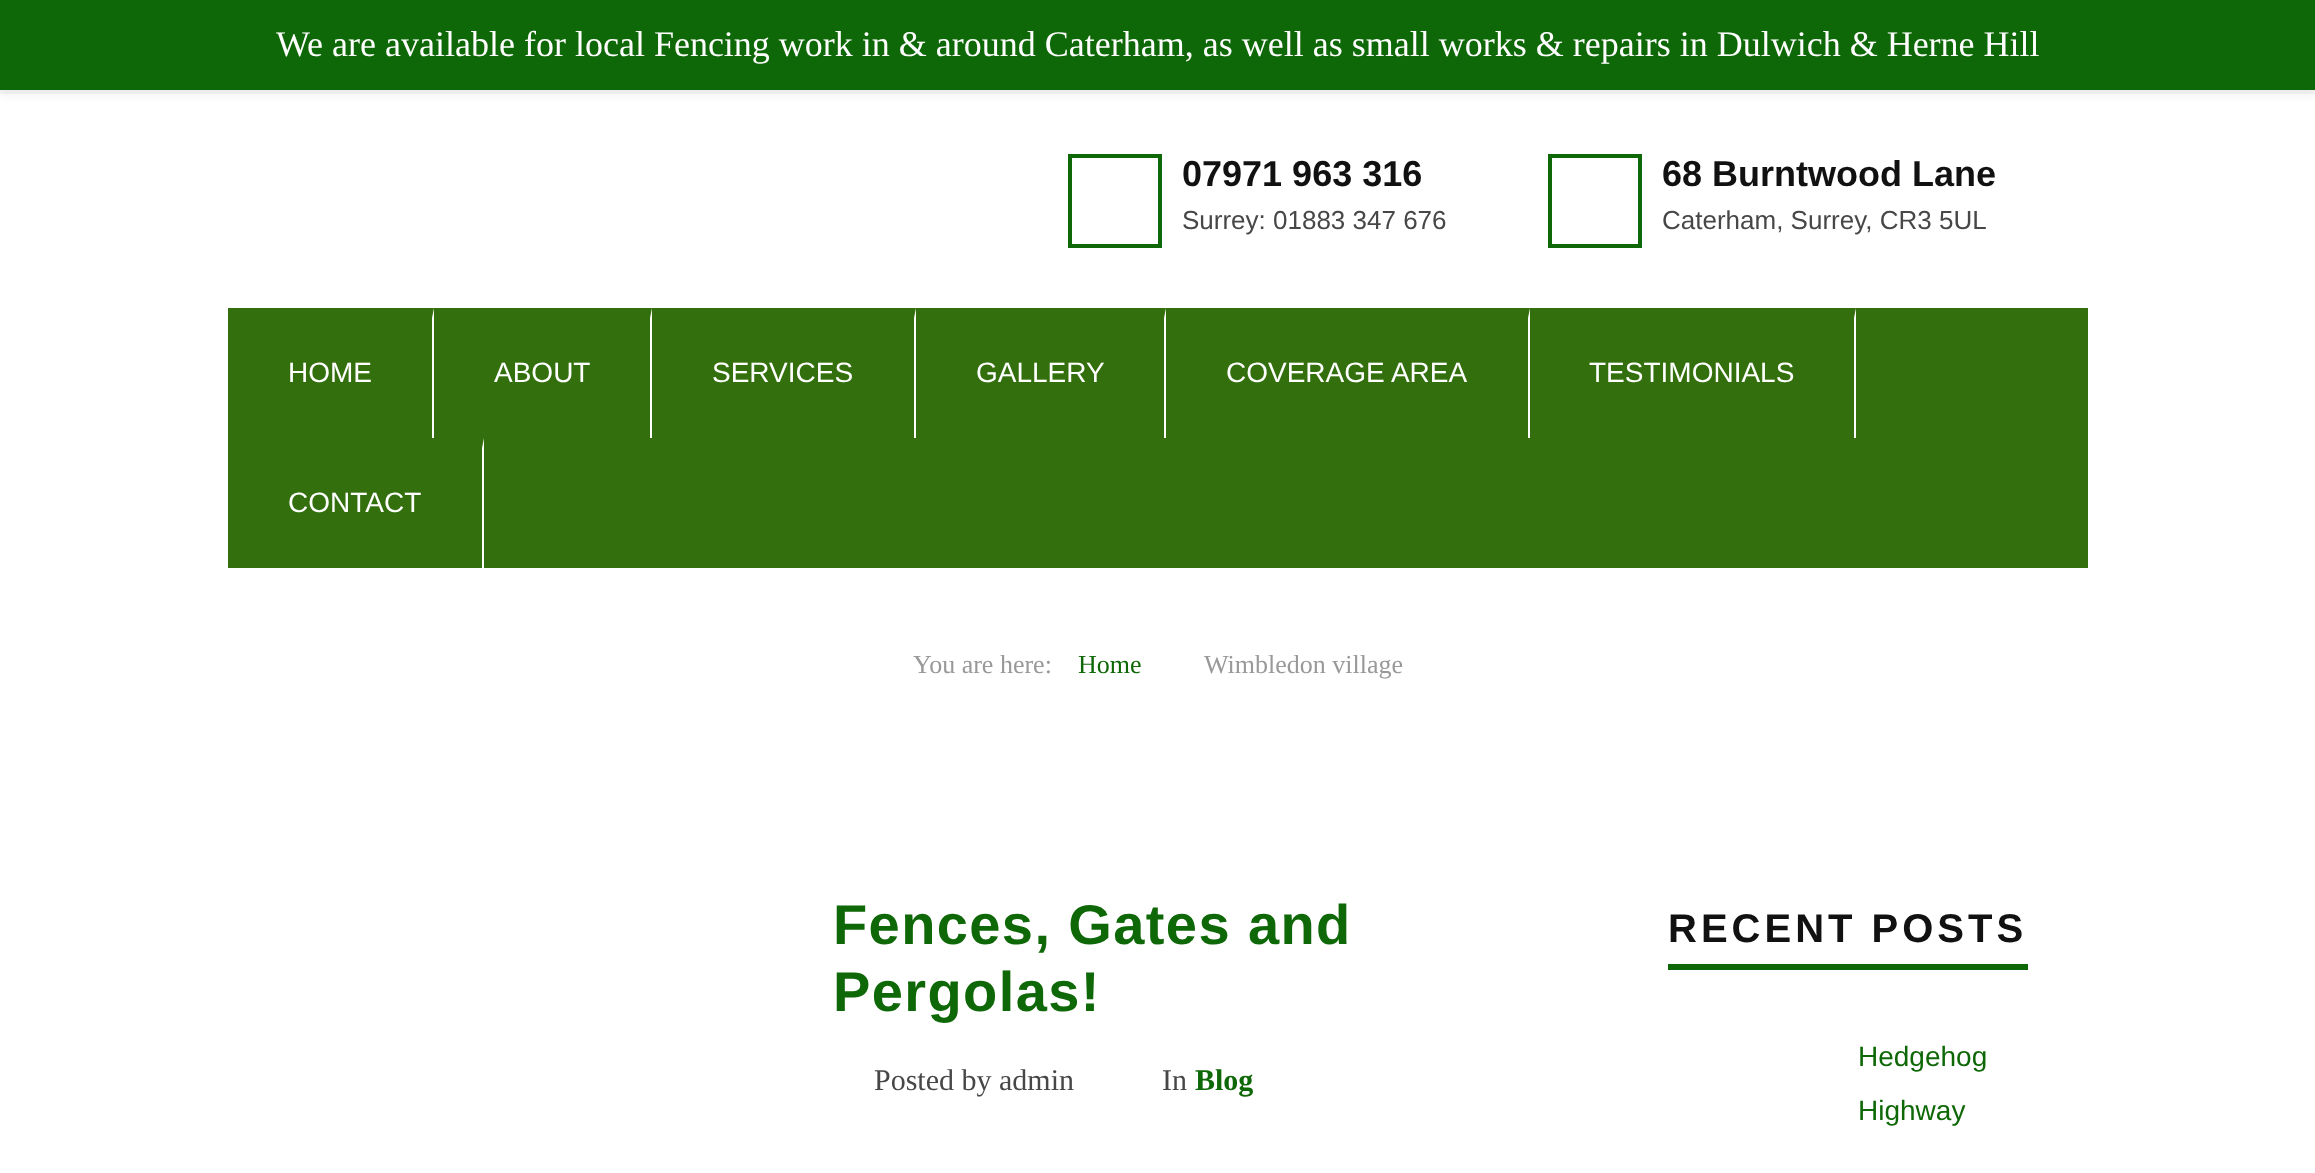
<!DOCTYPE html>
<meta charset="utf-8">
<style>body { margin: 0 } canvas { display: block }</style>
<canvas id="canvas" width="2315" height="1173"></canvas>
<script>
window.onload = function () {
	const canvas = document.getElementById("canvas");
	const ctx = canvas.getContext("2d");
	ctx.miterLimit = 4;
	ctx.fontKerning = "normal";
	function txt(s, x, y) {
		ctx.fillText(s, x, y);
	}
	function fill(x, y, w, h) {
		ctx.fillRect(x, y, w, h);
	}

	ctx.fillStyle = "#FFFFFF";
	fill(0, 0, 2315, 1173);
	ctx.fillStyle = "#F7F7F7";
	fill(0, 90, 2315, 4);
	ctx.fillStyle = "rgba(0, 0, 0, 0.05)";
	ctx.filter = "blur(4px)";
	ctx.beginPath();
	ctx.rect(0, 6, 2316, 90);
	ctx.fill();
	ctx.filter = "none";
	ctx.fillStyle = "#0F6807";
	fill(0, 0, 2315, 90);
	ctx.strokeStyle = "#0F6807";
	ctx.lineWidth = 4;
	ctx.strokeRect(1070, 156, 90, 90);
	ctx.strokeRect(1550, 156, 90, 90);
	ctx.fillStyle = "#33700D";
	fill(228, 308, 1860, 260);
	ctx.fillStyle = "#FFFFFF";
	ctx.beginPath();
	ctx.moveTo(434, 308);
	ctx.lineTo(434, 438);
	ctx.lineTo(432, 438);
	ctx.lineTo(432, 318);
	ctx.closePath();
	ctx.fill();
	ctx.beginPath();
	ctx.moveTo(652, 308);
	ctx.lineTo(652, 438);
	ctx.lineTo(650, 438);
	ctx.lineTo(650, 318);
	ctx.closePath();
	ctx.fill();
	ctx.beginPath();
	ctx.moveTo(916, 308);
	ctx.lineTo(916, 438);
	ctx.lineTo(914, 438);
	ctx.lineTo(914, 318);
	ctx.closePath();
	ctx.fill();
	ctx.beginPath();
	ctx.moveTo(1166, 308);
	ctx.lineTo(1166, 438);
	ctx.lineTo(1164, 438);
	ctx.lineTo(1164, 318);
	ctx.closePath();
	ctx.fill();
	ctx.beginPath();
	ctx.moveTo(1530, 308);
	ctx.lineTo(1530, 438);
	ctx.lineTo(1528, 438);
	ctx.lineTo(1528, 318);
	ctx.closePath();
	ctx.fill();
	ctx.beginPath();
	ctx.moveTo(1856, 308);
	ctx.lineTo(1856, 438);
	ctx.lineTo(1854, 438);
	ctx.lineTo(1854, 318);
	ctx.closePath();
	ctx.fill();
	ctx.beginPath();
	ctx.moveTo(484, 438);
	ctx.lineTo(484, 568);
	ctx.lineTo(482, 568);
	ctx.lineTo(482, 448);
	ctx.closePath();
	ctx.fill();
	ctx.fillStyle = "#0F6807";
	fill(1668, 964, 360, 6);
	ctx.font = "36px Liberation Serif";
	ctx.fillStyle = "#FFFFFF";
	txt("We are available for local Fencing work in & around Caterham, as well as small works & repairs in Dulwich & Herne Hill", 276, 56);
	ctx.font = "bold 36px Liberation Sans";
	ctx.fillStyle = "#111111";
	txt("07971 963 316", 1182, 186);
	ctx.font = "26px Liberation Sans";
	ctx.fillStyle = "#474747";
	txt("Surrey: 01883 347 676", 1182, 229);
	ctx.font = "bold 36px Liberation Sans";
	ctx.fillStyle = "#111111";
	txt("68 Burntwood Lane", 1662, 186);
	ctx.font = "26px Liberation Sans";
	ctx.fillStyle = "#474747";
	txt("Caterham, Surrey, CR3 5UL", 1662, 229);
	ctx.font = "28px Liberation Sans";
	ctx.fillStyle = "#FFFFFF";
	txt("HOME", 288, 382);
	txt("ABOUT", 494, 382);
	txt("SERVICES", 712, 382);
	txt("GALLERY", 976, 382);
	txt("COVERAGE AREA", 1226, 382);
	txt("TESTIMONIALS", 1589, 382);
	txt("CONTACT", 288, 512);
	ctx.font = "26px Liberation Serif";
	ctx.fillStyle = "#999999";
	txt("You are here:", 913, 673);
	ctx.fillStyle = "#0F6807";
	txt("Home", 1078, 673);
	ctx.fillStyle = "#999999";
	txt("Wimbledon village", 1204, 673);
	ctx.letterSpacing = "1.4px";
	ctx.font = "bold 56px Liberation Sans";
	ctx.fillStyle = "#0F6807";
	txt("Fences, Gates and", 833, 944);
	txt("Pergolas!", 833, 1011);
	ctx.letterSpacing = "0px";
	ctx.font = "30px Liberation Serif";
	ctx.fillStyle = "#474747";
	txt("Posted by admin", 874, 1090);
	txt("In", 1162, 1090);
	ctx.font = "bold 30px Liberation Serif";
	ctx.fillStyle = "#0F6807";
	txt("Blog", 1195, 1090);
	ctx.letterSpacing = "4px";
	ctx.font = "bold 40px Liberation Sans";
	ctx.fillStyle = "#111111";
	txt("RECENT POSTS", 1668, 942);
	ctx.letterSpacing = "0px";
	ctx.font = "28px Liberation Sans";
	ctx.fillStyle = "#0F6807";
	txt("Hedgehog", 1858, 1066);
	txt("Highway", 1858, 1120);
};
</script>
